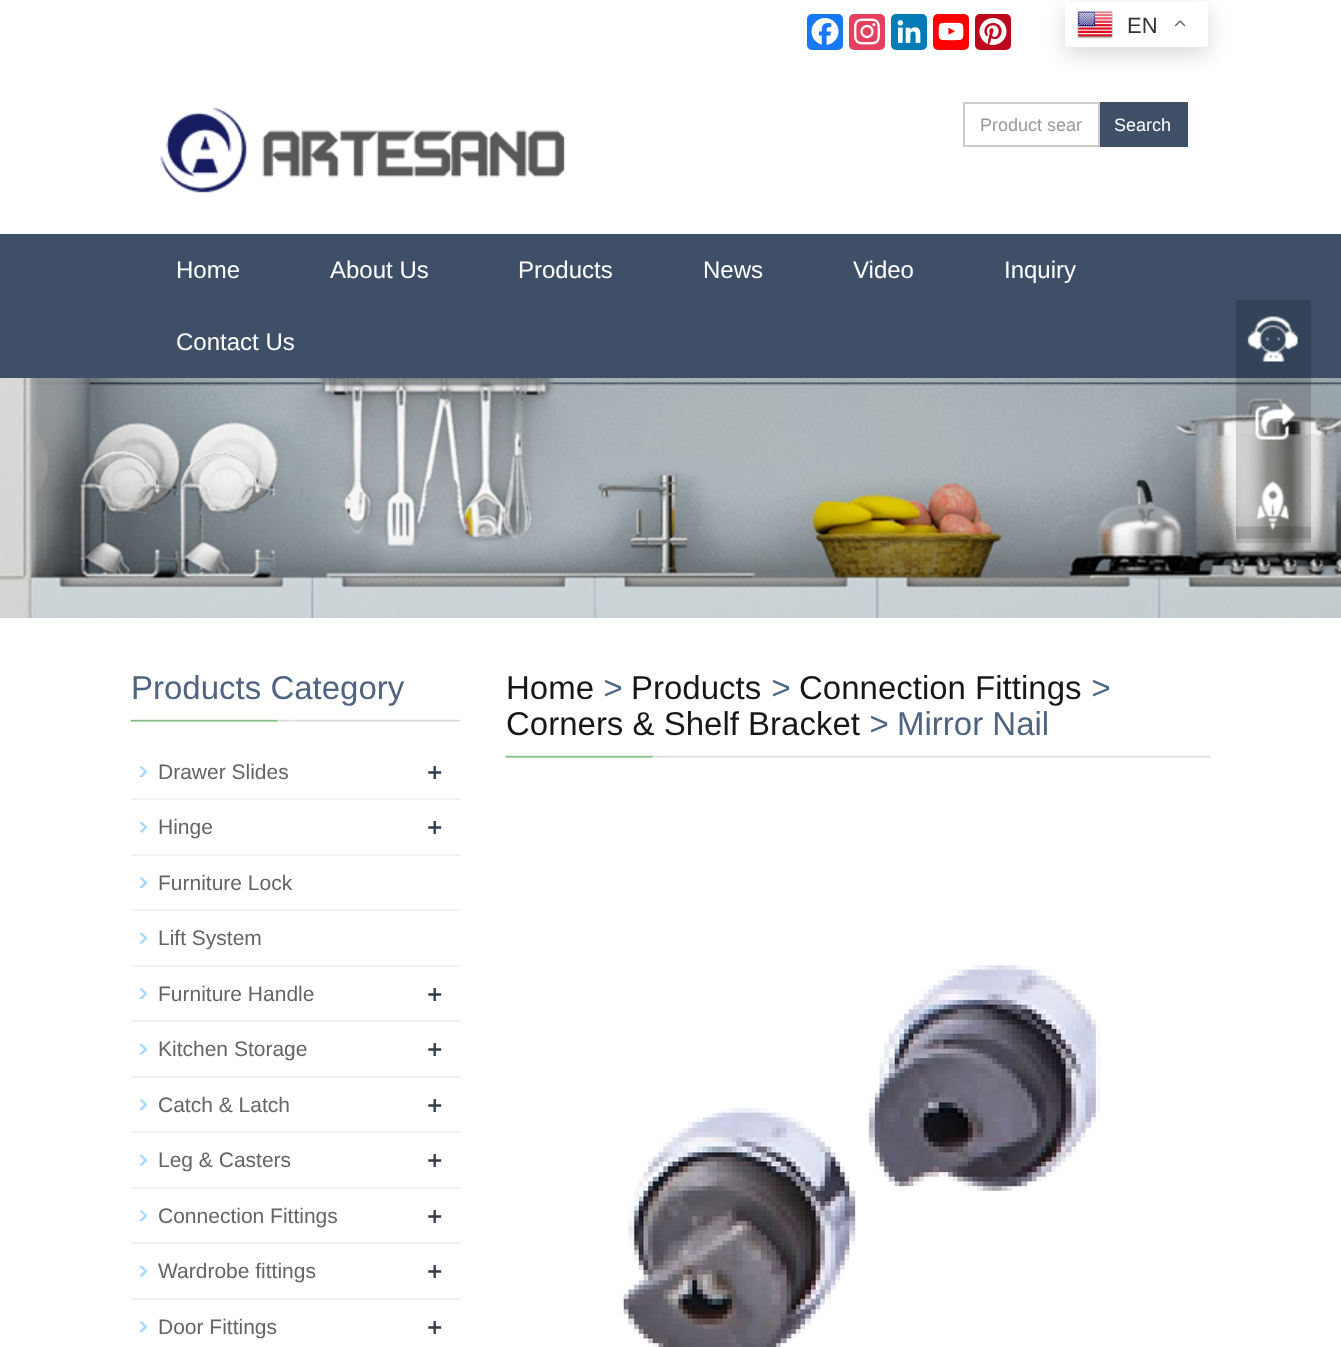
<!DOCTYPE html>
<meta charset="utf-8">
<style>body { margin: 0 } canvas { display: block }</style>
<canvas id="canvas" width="1341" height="1347"></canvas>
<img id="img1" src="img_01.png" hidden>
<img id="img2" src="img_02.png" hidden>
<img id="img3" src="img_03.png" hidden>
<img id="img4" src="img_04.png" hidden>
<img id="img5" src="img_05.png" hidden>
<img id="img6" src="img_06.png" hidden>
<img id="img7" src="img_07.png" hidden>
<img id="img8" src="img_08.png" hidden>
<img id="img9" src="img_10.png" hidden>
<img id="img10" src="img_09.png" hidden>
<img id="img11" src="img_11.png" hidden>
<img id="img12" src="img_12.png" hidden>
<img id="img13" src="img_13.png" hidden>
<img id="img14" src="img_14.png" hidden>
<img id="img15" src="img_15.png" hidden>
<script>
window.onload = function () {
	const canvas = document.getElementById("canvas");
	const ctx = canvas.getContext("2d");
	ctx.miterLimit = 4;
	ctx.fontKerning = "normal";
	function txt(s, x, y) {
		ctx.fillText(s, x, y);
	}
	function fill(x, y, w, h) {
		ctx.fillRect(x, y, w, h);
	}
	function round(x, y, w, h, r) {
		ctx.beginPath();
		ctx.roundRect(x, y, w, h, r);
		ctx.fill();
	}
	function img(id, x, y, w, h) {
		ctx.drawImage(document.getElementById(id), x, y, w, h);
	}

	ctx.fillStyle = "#FFFFFF";
	fill(0, 0, 1341, 1347);
	ctx.fillStyle = "rgba(0, 0, 0, 0.15)";
	ctx.filter = "blur(11px)";
	ctx.beginPath();
	ctx.roundRect(1065, 9, 143, 45, 3);
	ctx.fill();
	ctx.filter = "none";
	ctx.fillStyle = "#FFFFFF";
	round(1065, 2, 143, 45, 3);
	img("img1", 1077, 10, 36, 29);
	img("img2", 1175, 20, 10, 7);
	ctx.fillStyle = "#1877F2";
	round(807, 14, 36, 36, 5);
	img("img3", 811, 18, 28, 27);
	ctx.fillStyle = "#E4405F";
	round(849, 14, 36, 36, 5);
	img("img4", 854, 18, 26, 27);
	ctx.fillStyle = "#007BB5";
	round(891, 14, 36, 36, 5);
	img("img5", 897, 20, 24, 23);
	ctx.fillStyle = "#FF0000";
	round(933, 14, 36, 36, 5);
	img("img6", 938, 22, 26, 19);
	ctx.fillStyle = "#BD081C";
	round(975, 14, 36, 36, 5);
	img("img7", 979, 18, 28, 27);
	img("img8", 160, 107, 405, 86);
	ctx.strokeStyle = "#CCCCCC";
	ctx.lineWidth = 2;
	ctx.strokeRect(964, 103, 135, 43);
	ctx.fillStyle = "#3E4F67";
	fill(1100, 102, 88, 45);
	fill(0, 234, 1341, 144);
	img("img9", 0, 378, 1341, 240);
	img("img10", 1236, 300, 75, 244);
	img("img11", 130, 717, 331, 5);
	img("img12", 139, 766, 9, 11);
	ctx.fillStyle = "#F2F2F2";
	fill(131, 798, 330, 2);
	img("img13", 139, 822, 9, 11);
	fill(131, 854, 330, 2);
	img("img12", 139, 877, 9, 11);
	fill(131, 909, 330, 2);
	img("img13", 139, 933, 9, 11);
	fill(131, 965, 330, 2);
	img("img12", 139, 988, 9, 11);
	fill(131, 1020, 330, 2);
	img("img13", 139, 1044, 9, 11);
	fill(131, 1076, 330, 2);
	img("img12", 139, 1099, 9, 11);
	fill(131, 1131, 330, 2);
	img("img13", 139, 1155, 9, 11);
	fill(131, 1187, 330, 2);
	img("img12", 139, 1210, 9, 11);
	fill(131, 1242, 330, 2);
	img("img13", 139, 1266, 9, 11);
	fill(131, 1298, 330, 2);
	img("img12", 139, 1321, 9, 11);
	img("img14", 505, 753, 706, 5);
	img("img15", 619, 965, 482, 382);
	ctx.font = "22px Liberation Sans";
	ctx.fillStyle = "#333333";
	txt("EN", 1127, 33);
	ctx.font = "18px Liberation Sans";
	ctx.fillStyle = "#999999";
	txt("Product sear", 980, 131);
	ctx.fillStyle = "#FFFFFF";
	txt("Search", 1114, 131);
	ctx.font = "24px Liberation Sans";
	txt("Home", 176, 278);
	txt("About Us", 330, 278);
	txt("Products", 518, 278);
	txt("News", 703, 278);
	txt("Video", 853, 278);
	txt("Inquiry", 1004, 278);
	txt("Contact Us", 176, 350);
	ctx.font = "33px Liberation Sans";
	ctx.fillStyle = "#4F6481";
	txt("Products Category", 131, 699);
	ctx.font = "21px Liberation Sans";
	ctx.fillStyle = "#656464";
	txt("Drawer Slides", 158, 779);
	ctx.font = "600 27px Open Sans";
	ctx.fillStyle = "#303C4B";
	txt("+", 427, 782);
	ctx.font = "21px Liberation Sans";
	ctx.fillStyle = "#656464";
	txt("Hinge", 158, 834);
	ctx.font = "600 27px Open Sans";
	ctx.fillStyle = "#303C4B";
	txt("+", 427, 837);
	ctx.font = "21px Liberation Sans";
	ctx.fillStyle = "#656464";
	txt("Furniture Lock", 158, 890);
	txt("Lift System", 158, 945);
	txt("Furniture Handle", 158, 1001);
	ctx.font = "600 27px Open Sans";
	ctx.fillStyle = "#303C4B";
	txt("+", 427, 1004);
	ctx.font = "21px Liberation Sans";
	ctx.fillStyle = "#656464";
	txt("Kitchen Storage", 158, 1056);
	ctx.font = "600 27px Open Sans";
	ctx.fillStyle = "#303C4B";
	txt("+", 427, 1059);
	ctx.font = "21px Liberation Sans";
	ctx.fillStyle = "#656464";
	txt("Catch & Latch", 158, 1112);
	ctx.font = "600 27px Open Sans";
	ctx.fillStyle = "#303C4B";
	txt("+", 427, 1115);
	ctx.font = "21px Liberation Sans";
	ctx.fillStyle = "#656464";
	txt("Leg & Casters", 158, 1167);
	ctx.font = "600 27px Open Sans";
	ctx.fillStyle = "#303C4B";
	txt("+", 427, 1170);
	ctx.font = "21px Liberation Sans";
	ctx.fillStyle = "#656464";
	txt("Connection Fittings", 158, 1223);
	ctx.font = "600 27px Open Sans";
	ctx.fillStyle = "#303C4B";
	txt("+", 427, 1226);
	ctx.font = "21px Liberation Sans";
	ctx.fillStyle = "#656464";
	txt("Wardrobe fittings", 158, 1278);
	ctx.font = "600 27px Open Sans";
	ctx.fillStyle = "#303C4B";
	txt("+", 427, 1281);
	ctx.font = "21px Liberation Sans";
	ctx.fillStyle = "#656464";
	txt("Door Fittings", 158, 1334);
	ctx.font = "600 27px Open Sans";
	ctx.fillStyle = "#303C4B";
	txt("+", 427, 1337);
	ctx.font = "33px Liberation Sans";
	ctx.fillStyle = "#171717";
	txt("Home", 506, 699);
	ctx.font = "italic 33px Liberation Sans";
	ctx.fillStyle = "#4F6481";
	txt(">", 603, 699);
	ctx.font = "33px Liberation Sans";
	ctx.fillStyle = "#171717";
	txt("Products", 631, 699);
	ctx.font = "italic 33px Liberation Sans";
	ctx.fillStyle = "#4F6481";
	txt(">", 771, 699);
	ctx.font = "33px Liberation Sans";
	ctx.fillStyle = "#171717";
	txt("Connection Fittings", 799, 699);
	ctx.font = "italic 33px Liberation Sans";
	ctx.fillStyle = "#4F6481";
	txt(">", 1091, 699);
	ctx.font = "33px Liberation Sans";
	ctx.fillStyle = "#171717";
	txt("Corners & Shelf Bracket", 506, 735);
	ctx.font = "italic 33px Liberation Sans";
	ctx.fillStyle = "#4F6481";
	txt(">", 869, 735);
	ctx.font = "33px Liberation Sans";
	txt("Mirror Nail", 897, 735);
};
</script>
